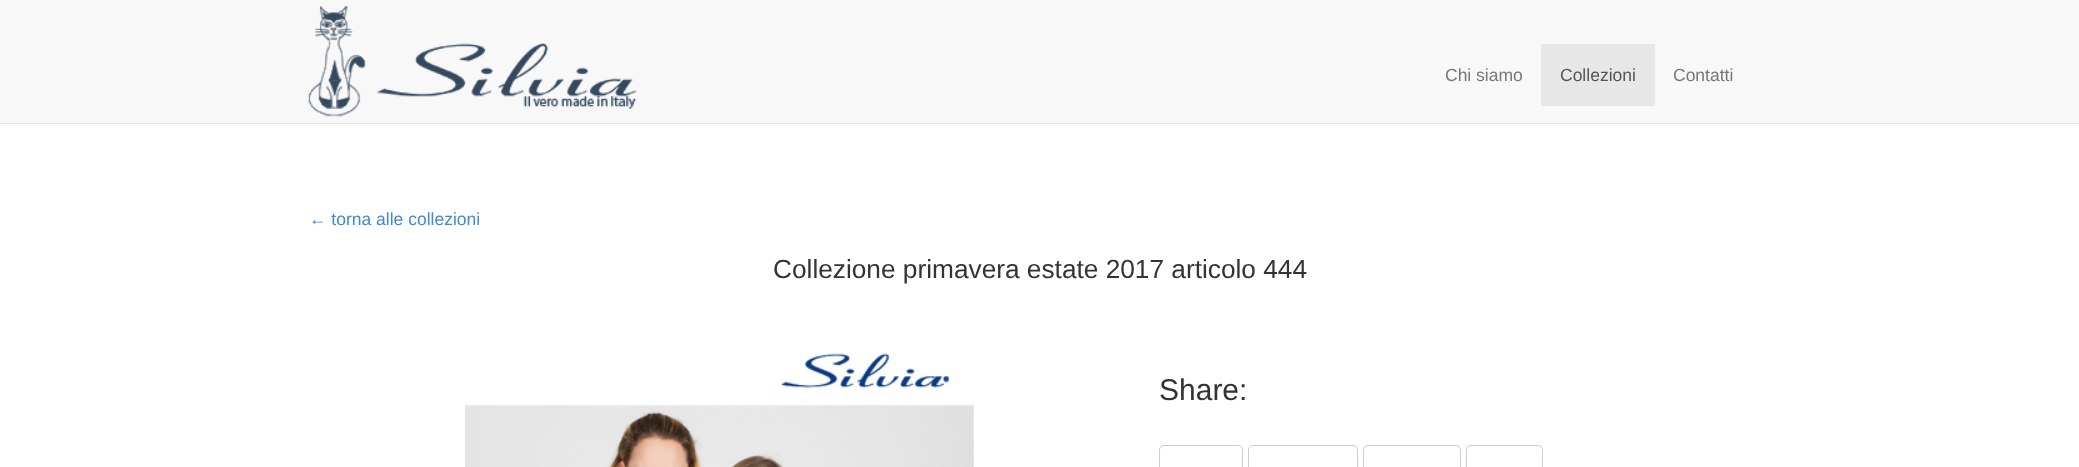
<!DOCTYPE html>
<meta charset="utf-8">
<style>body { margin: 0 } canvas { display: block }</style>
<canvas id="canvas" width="2079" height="467"></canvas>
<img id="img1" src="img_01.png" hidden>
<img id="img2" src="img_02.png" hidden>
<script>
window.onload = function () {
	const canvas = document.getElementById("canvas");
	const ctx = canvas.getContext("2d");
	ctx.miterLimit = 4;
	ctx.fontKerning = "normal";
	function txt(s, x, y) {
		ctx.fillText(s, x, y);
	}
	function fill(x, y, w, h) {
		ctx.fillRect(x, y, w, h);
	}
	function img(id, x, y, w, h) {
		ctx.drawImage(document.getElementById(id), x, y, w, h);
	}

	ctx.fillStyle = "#FFFFFF";
	fill(0, 0, 2079, 467);
	ctx.fillStyle = "#F8F8F8";
	fill(0, 0, 2079, 123);
	ctx.fillStyle = "#E7E7E7";
	fill(0, 123, 2079, 1);
	img("img1", 308, 6, 329, 111);
	fill(1541, 44, 114, 62);
	img("img2", 465, 353, 509, 114);
	ctx.beginPath();
	ctx.roundRect(1159.5, 445.5, 83, 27, 4.5);
	ctx.strokeStyle = "#CCCCCC";
	ctx.stroke();
	ctx.beginPath();
	ctx.roundRect(1248.5, 445.5, 109, 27, 4.5);
	ctx.stroke();
	ctx.beginPath();
	ctx.roundRect(1363.5, 445.5, 97, 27, 4.5);
	ctx.stroke();
	ctx.beginPath();
	ctx.roundRect(1466.5, 445.5, 76, 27, 4.5);
	ctx.stroke();
	ctx.font = "17.5px Liberation Sans";
	ctx.fillStyle = "#777777";
	txt("Chi siamo", 1445, 81);
	ctx.fillStyle = "#555555";
	txt("Collezioni", 1560, 81);
	ctx.fillStyle = "#777777";
	txt("Contatti", 1673, 81);
	ctx.fillStyle = "#428BCA";
	txt("← torna alle collezioni", 309, 225);
	ctx.font = "26.25px Liberation Sans";
	ctx.fillStyle = "#333333";
	txt("Collezione primavera estate 2017 articolo 444", 773, 278);
	ctx.font = "30px Liberation Sans";
	txt("Share:", 1159, 400);
};
</script>
